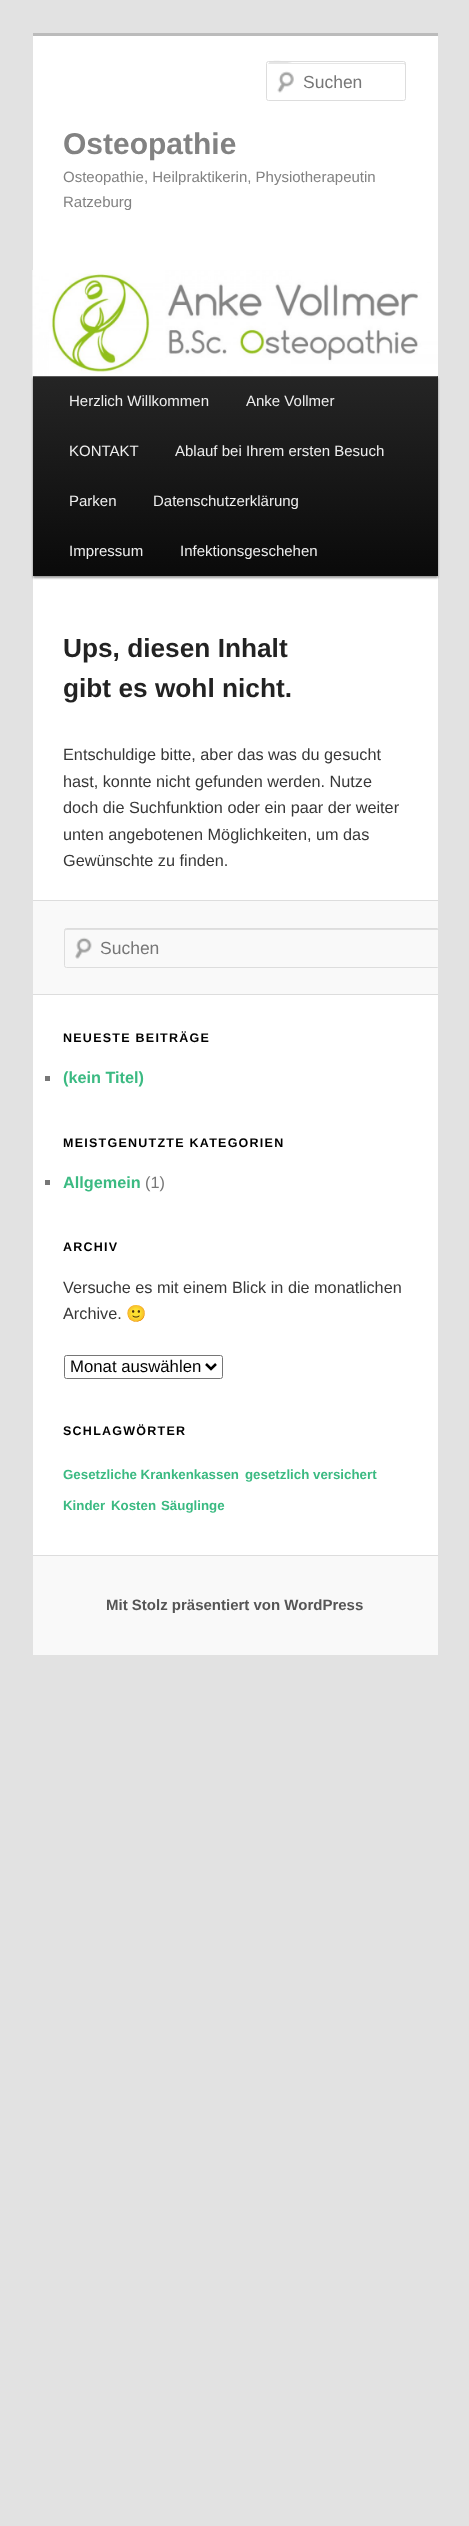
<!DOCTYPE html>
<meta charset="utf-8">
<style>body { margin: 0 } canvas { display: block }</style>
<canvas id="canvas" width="469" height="2526"></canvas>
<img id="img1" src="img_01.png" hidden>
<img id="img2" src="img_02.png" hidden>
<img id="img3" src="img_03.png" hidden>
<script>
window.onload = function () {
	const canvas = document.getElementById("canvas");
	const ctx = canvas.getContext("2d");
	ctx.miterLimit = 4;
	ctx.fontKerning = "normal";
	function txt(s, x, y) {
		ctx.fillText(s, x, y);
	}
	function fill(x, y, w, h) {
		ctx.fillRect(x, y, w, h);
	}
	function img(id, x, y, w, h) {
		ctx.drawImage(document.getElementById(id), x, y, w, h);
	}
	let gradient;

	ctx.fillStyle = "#E2E2E2";
	fill(0, 0, 469, 2526);
	ctx.fillStyle = "#FFFFFF";
	fill(33, 36, 405, 1519);
	ctx.fillStyle = "#BBBBBB";
	fill(33, 33, 405, 3);
	img("img1", 277, 71, 17, 22);
	ctx.fillStyle = "#E6E6E6";
	ctx.beginPath();
	ctx.moveTo(269, 64);
	ctx.lineTo(404, 64);
	ctx.lineTo(405, 65);
	ctx.lineTo(405, 63);
	ctx.lineTo(292, 63);
	ctx.bezierCurveTo(291, 63, 268, 57, 268, 65);
	ctx.bezierCurveTo(268, 64, 268, 64, 269, 64);
	ctx.closePath();
	ctx.fill();
	ctx.beginPath();
	ctx.roundRect(266.5, 61.5, 139, 39, 2);
	ctx.strokeStyle = "#DDDDDD";
	ctx.stroke();
	ctx.fillStyle = "rgba(0, 0, 0, 0.4)";
	ctx.filter = "blur(1px)";
	ctx.beginPath();
	ctx.rect(33, 378, 405, 200);
	ctx.fill();
	ctx.filter = "none";
	gradient = ctx.createLinearGradient(235, 376, 235, 576);
	gradient.addColorStop(0, "#252525");
	gradient.addColorStop(1, "#0A0A0A");
	ctx.fillStyle = gradient;
	fill(33, 376, 405, 200);
	img("img2", 32, 270, 406, 107);
	ctx.fillStyle = "#F9F9F9";
	fill(33, 901, 405, 93);
	ctx.fillStyle = "#DDDDDD";
	fill(33, 900, 405, 1);
	fill(33, 994, 405, 1);
	img("img3", 75, 937, 17, 22);
	ctx.fillStyle = "#E0E0E0";
	ctx.beginPath();
	ctx.moveTo(66, 930);
	ctx.lineTo(438, 930);
	ctx.lineTo(439, 931);
	ctx.lineTo(439, 930);
	ctx.lineTo(438, 929);
	ctx.lineTo(66, 929);
	ctx.bezierCurveTo(65, 929, 65, 930, 65, 931);
	ctx.closePath();
	ctx.fill();
	ctx.save();
	ctx.beginPath();
	ctx.rect(33, 901, 405, 93);
	ctx.clip();
	ctx.beginPath();
	ctx.roundRect(64.5, 928.5, 375, 39, 2);
	ctx.stroke();
	ctx.restore();
	ctx.fillStyle = "#777777";
	fill(45, 1076, 5, 5);
	fill(45, 1180, 5, 5);
	ctx.beginPath();
	ctx.roundRect(64.5, 1355.5, 158, 23, 2);
	ctx.strokeStyle = "#767676";
	ctx.stroke();
	ctx.beginPath();
	ctx.moveTo(206, 1364);
	ctx.lineTo(211, 1369);
	ctx.lineTo(216, 1364);
	ctx.strokeStyle = "#000000";
	ctx.lineWidth = 2.5;
	ctx.stroke();
	ctx.fillStyle = "#F9F9F9";
	fill(33, 1556, 405, 99);
	ctx.fillStyle = "#DDDDDD";
	fill(33, 1555, 405, 1);
	ctx.font = "17.5px Liberation Sans";
	ctx.fillStyle = "#777777";
	txt("Suchen", 303, 88);
	ctx.font = "bold 30px Liberation Sans";
	ctx.fillStyle = "#828282";
	txt("Osteopathie", 63, 154);
	ctx.font = "15px Liberation Sans";
	txt("Osteopathie, Heilpraktikerin, Physiotherapeutin", 63, 182);
	txt("Ratzeburg", 63, 207);
	ctx.fillStyle = "#EEEEEE";
	txt("Herzlich Willkommen", 69, 406);
	txt("Anke Vollmer", 246, 406);
	txt("KONTAKT", 69, 456);
	txt("Ablauf bei Ihrem ersten Besuch", 175, 456);
	txt("Parken", 69, 506);
	txt("Datenschutzerklärung", 153, 506);
	txt("Impressum", 69, 556);
	txt("Infektionsgeschehen", 180, 556);
	ctx.font = "bold 26.25px Liberation Sans";
	ctx.fillStyle = "#222222";
	txt("Ups, diesen Inhalt", 63, 657);
	txt("gibt es wohl nicht.", 63, 697);
	ctx.font = "16.25px Liberation Sans";
	ctx.fillStyle = "#373737";
	txt("Entschuldige bitte, aber das was du gesucht", 63, 760);
	txt("hast, konnte nicht gefunden werden. Nutze", 63, 787);
	txt("doch die Suchfunktion oder ein paar der weiter", 63, 813);
	txt("unten angebotenen Möglichkeiten, um das", 63, 840);
	txt("Gewünschte zu finden.", 63, 866);
	ctx.font = "17.5px Liberation Sans";
	ctx.fillStyle = "#777777";
	txt("Suchen", 100, 954);
	ctx.letterSpacing = "1.25px";
	ctx.font = "bold 12.5px Liberation Sans";
	ctx.fillStyle = "#000000";
	txt("NEUESTE BEITRÄGE", 63, 1042);
	ctx.letterSpacing = "0px";
	ctx.font = "bold 16.25px Liberation Sans";
	ctx.fillStyle = "#3BBA82";
	txt("(kein Titel)", 63, 1083);
	ctx.letterSpacing = "1.25px";
	ctx.font = "bold 12.5px Liberation Sans";
	ctx.fillStyle = "#000000";
	txt("MEISTGENUTZTE KATEGORIEN", 63, 1147);
	ctx.letterSpacing = "0px";
	ctx.font = "bold 16.25px Liberation Sans";
	ctx.fillStyle = "#3BBA82";
	txt("Allgemein", 63, 1188);
	ctx.font = "16.25px Liberation Sans";
	ctx.fillStyle = "#777777";
	txt("(1)", 145, 1188);
	ctx.letterSpacing = "1.25px";
	ctx.font = "bold 12.5px Liberation Sans";
	ctx.fillStyle = "#000000";
	txt("ARCHIV", 63, 1251);
	ctx.letterSpacing = "0px";
	ctx.font = "16.25px Liberation Sans";
	ctx.fillStyle = "#373737";
	txt("Versuche es mit einem Blick in die monatlichen", 63, 1293);
	txt("Archive.", 63, 1319);
	ctx.font = "16.25px Noto Color Emoji";
	txt("🙂", 126, 1319);
	ctx.font = "16.75px Liberation Sans";
	ctx.fillStyle = "#000000";
	txt("Monat auswählen", 70, 1372);
	ctx.letterSpacing = "1.25px";
	ctx.font = "bold 12.5px Liberation Sans";
	txt("SCHLAGWÖRTER", 63, 1435);
	ctx.letterSpacing = "0px";
	ctx.font = "bold 13.3px Liberation Sans";
	ctx.fillStyle = "#3BBA82";
	txt("Gesetzliche Krankenkassen", 63, 1479);
	txt("gesetzlich versichert", 245, 1479);
	txt("Kinder", 63, 1510);
	txt("Kosten", 111, 1510);
	txt("Säuglinge", 161, 1510);
	ctx.font = "bold 15px Liberation Sans";
	ctx.fillStyle = "#555555";
	txt("Mit Stolz präsentiert von WordPress", 106, 1610);
};
</script>
